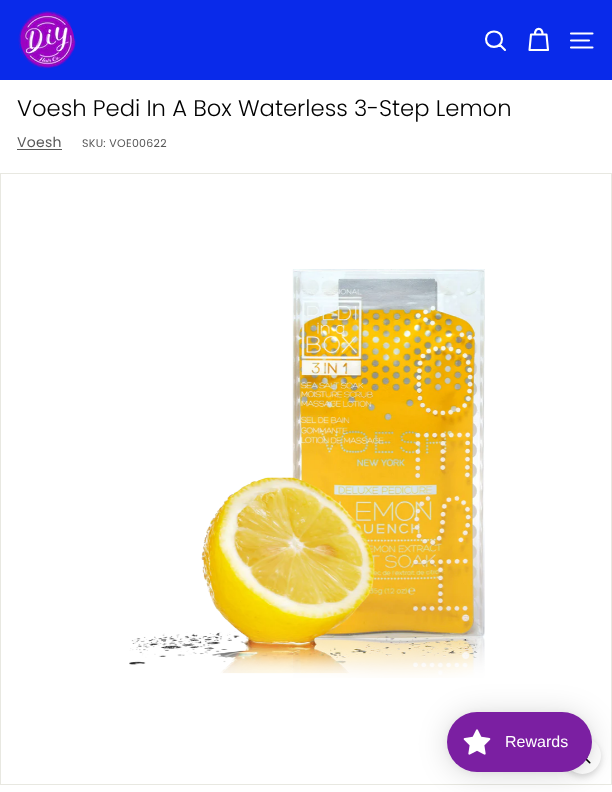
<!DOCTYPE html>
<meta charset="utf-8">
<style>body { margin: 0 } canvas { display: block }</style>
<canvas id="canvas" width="612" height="792"></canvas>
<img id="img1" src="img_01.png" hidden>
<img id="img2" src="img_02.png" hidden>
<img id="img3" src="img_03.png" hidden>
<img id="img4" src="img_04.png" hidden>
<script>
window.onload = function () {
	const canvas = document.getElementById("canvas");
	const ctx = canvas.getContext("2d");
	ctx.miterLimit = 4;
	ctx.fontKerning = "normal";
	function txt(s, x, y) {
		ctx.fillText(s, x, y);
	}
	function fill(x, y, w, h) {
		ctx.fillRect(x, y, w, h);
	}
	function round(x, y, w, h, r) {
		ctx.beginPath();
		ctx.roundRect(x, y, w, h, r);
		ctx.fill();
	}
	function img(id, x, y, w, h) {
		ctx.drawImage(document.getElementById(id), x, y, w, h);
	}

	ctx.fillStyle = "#FFFFFF";
	fill(0, 0, 612, 792);
	ctx.fillStyle = "#092AEA";
	fill(0, 0, 612, 80);
	img("img1", 18, 11, 58, 58);
	ctx.beginPath();
	ctx.moveTo(502, 39);
	ctx.bezierCurveTo(502, 49.5, 486, 49.5, 486, 39);
	ctx.bezierCurveTo(486, 29, 502, 29, 502, 39);
	ctx.closePath();
	ctx.moveTo(505, 50);
	ctx.lineTo(499.5, 44.5);
	ctx.strokeStyle = "#FFFFFF";
	ctx.lineWidth = 2.1;
	ctx.lineCap = "round";
	ctx.lineJoin = "round";
	ctx.stroke();
	ctx.beginPath();
	ctx.moveTo(535, 34.5);
	ctx.bezierCurveTo(535, 27, 542.5, 27, 542.5, 34.5);
	ctx.moveTo(531, 34.5);
	ctx.lineTo(546.5, 34.5);
	ctx.lineTo(548, 50);
	ctx.lineTo(529.5, 50);
	ctx.closePath();
	ctx.stroke();
	ctx.beginPath();
	ctx.moveTo(571, 33.5);
	ctx.lineTo(592.5, 33.5);
	ctx.moveTo(571, 40.5);
	ctx.lineTo(589, 40.5);
	ctx.moveTo(571, 47.5);
	ctx.lineTo(592.5, 47.5);
	ctx.stroke();
	ctx.fillStyle = "#595959";
	fill(17, 149, 45, 1);
	ctx.strokeStyle = "#E8E8E1";
	ctx.lineWidth = 1;
	ctx.lineJoin = "miter";
	ctx.strokeRect(0.5, 173.5, 611, 611);
	img("img2", 129, 269, 356, 409);
	ctx.fillStyle = "rgba(0, 0, 0, 0.15)";
	ctx.filter = "blur(3px)";
	ctx.beginPath();
	ctx.roundRect(564, 740, 37, 37, 18.5);
	ctx.fill();
	ctx.filter = "none";
	ctx.fillStyle = "#FFFFFF";
	ctx.beginPath();
	ctx.arc(582.5, 755.5, 18.5, 0, Math.PI * 2);
	ctx.fill();
	img("img3", 585, 755, 6, 9);
	ctx.fillStyle = "rgba(0, 0, 0, 0.15)";
	ctx.filter = "blur(15px)";
	ctx.beginPath();
	ctx.roundRect(447, 714, 145, 60, 30);
	ctx.fill();
	ctx.filter = "none";
	ctx.fillStyle = "rgba(0, 0, 0, 0.05)";
	ctx.filter = "blur(3px)";
	ctx.beginPath();
	ctx.roundRect(447, 713, 145, 60, 30);
	ctx.fill();
	ctx.filter = "none";
	ctx.fillStyle = "#7B1FA2";
	round(447, 712, 145, 60, 30);
	img("img4", 463, 729, 28, 26);
	ctx.font = "300 22.7px Poppins";
	ctx.fillStyle = "#000000";
	txt("Voesh Pedi In A Box Waterless 3-Step Lemon", 17, 116);
	ctx.letterSpacing = "0.3px";
	ctx.font = "14px Poppins";
	ctx.fillStyle = "#595959";
	txt("Voesh", 17, 147);
	ctx.font = "11px Poppins";
	txt("SKU: VOE00622", 82, 147);
	ctx.letterSpacing = "0px";
	ctx.font = "16px Liberation Sans";
	ctx.fillStyle = "#FFFFFF";
	txt("Rewards", 505, 747);
};
</script>
